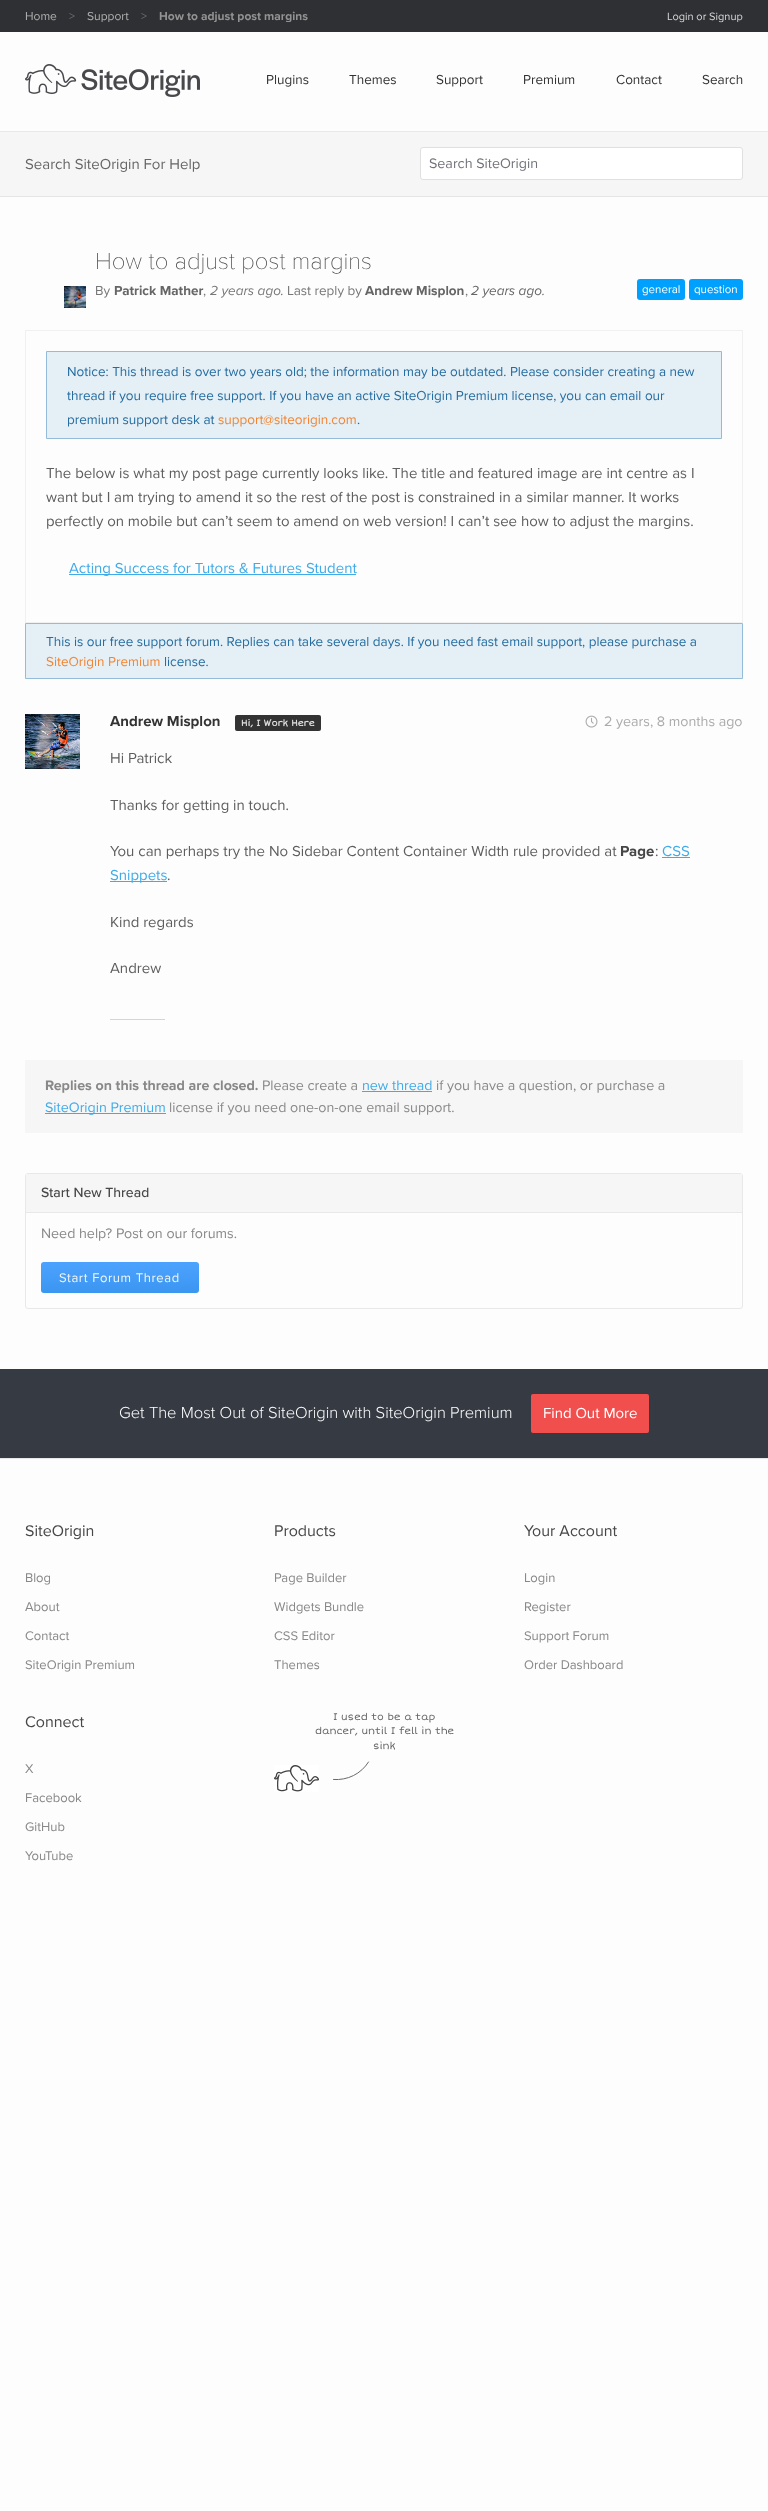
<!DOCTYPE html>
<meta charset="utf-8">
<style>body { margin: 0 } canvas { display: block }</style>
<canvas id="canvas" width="768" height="2511"></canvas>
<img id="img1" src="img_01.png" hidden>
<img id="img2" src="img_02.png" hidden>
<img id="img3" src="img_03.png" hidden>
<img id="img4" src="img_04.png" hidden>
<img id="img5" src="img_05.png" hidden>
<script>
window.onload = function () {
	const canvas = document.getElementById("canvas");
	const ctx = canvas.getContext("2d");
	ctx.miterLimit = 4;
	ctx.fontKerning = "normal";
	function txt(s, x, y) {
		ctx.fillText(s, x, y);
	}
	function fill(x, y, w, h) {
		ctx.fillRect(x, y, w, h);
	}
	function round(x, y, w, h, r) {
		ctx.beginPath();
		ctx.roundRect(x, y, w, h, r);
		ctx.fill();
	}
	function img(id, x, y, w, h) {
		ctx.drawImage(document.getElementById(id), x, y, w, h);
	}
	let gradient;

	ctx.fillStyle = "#FDFDFD";
	fill(0, 0, 768, 2511);
	ctx.fillStyle = "#2F3033";
	fill(0, 0, 768, 32);
	ctx.fillStyle = "#E8E8E8";
	fill(0, 131, 768, 1);
	img("img1", 25, 64, 175, 33);
	ctx.fillStyle = "#F6F6F6";
	fill(0, 132, 768, 64);
	ctx.fillStyle = "#E5E5E5";
	fill(0, 196, 768, 1);
	ctx.fillStyle = "#FFFFFF";
	ctx.beginPath();
	ctx.roundRect(420.5, 147.5, 322, 32, 2.5);
	ctx.fill();
	ctx.strokeStyle = "#E0E0E0";
	ctx.stroke();
	img("img2", 64, 286, 22, 22);
	ctx.fillStyle = "#00A0FF";
	round(637, 279, 48, 21, 3);
	round(689, 279, 54, 21, 3);
	ctx.strokeStyle = "#F0F0F0";
	ctx.strokeRect(25.5, 330.5, 717, 292);
	ctx.fillStyle = "#E5EFF6";
	ctx.beginPath();
	ctx.rect(46.5, 351.5, 675, 87);
	ctx.fill();
	ctx.strokeStyle = "#94BCD8";
	ctx.stroke();
	ctx.fillStyle = "#3FABE9";
	fill(69, 574, 287, 1);
	ctx.fillStyle = "#E5EFF6";
	ctx.beginPath();
	ctx.rect(25.5, 623.5, 717, 55);
	ctx.fill();
	ctx.stroke();
	img("img3", 25, 714, 55, 55);
	ctx.fillStyle = "#333333";
	round(235, 715, 86, 16, 2);
	img("img4", 585, 715, 13, 13);
	ctx.fillStyle = "#3FABE9";
	fill(662, 857, 28, 1);
	fill(110, 881, 57, 1);
	ctx.fillStyle = "#D2D6D9";
	fill(110, 1019, 55, 1);
	ctx.fillStyle = "#F6F6F6";
	fill(25, 1060, 718, 73);
	ctx.fillStyle = "#3FABE9";
	fill(362, 1091, 70, 1);
	fill(45, 1113, 121, 1);
	ctx.beginPath();
	ctx.roundRect(25.5, 1173.5, 717, 135, 2.5);
	ctx.strokeStyle = "#E8E8E8";
	ctx.stroke();
	ctx.fillStyle = "#F6F6F6";
	fill(26, 1174, 716, 38);
	ctx.fillStyle = "#E8E8E8";
	fill(26, 1212, 716, 1);
	gradient = ctx.createLinearGradient(41, 1293, 41, 1262);
	gradient.addColorStop(0, "#3B96F0");
	gradient.addColorStop(1, "#4CA3FF");
	ctx.fillStyle = gradient;
	round(41, 1262, 158, 31, 3);
	ctx.fillStyle = "#363A43";
	fill(0, 1369, 768, 89);
	ctx.fillStyle = "#F14E4E";
	round(531, 1394, 118, 39, 2);
	ctx.fillStyle = "#E8E8E8";
	fill(0, 1458, 768, 1);
	img("img5", 274, 1765, 45, 27);
	ctx.beginPath();
	ctx.moveTo(368.5, 1762);
	ctx.bezierCurveTo(361, 1774, 347.5, 1780.5, 333.5, 1779.5);
	ctx.strokeStyle = "#6A6A6A";
	ctx.lineCap = "round";
	ctx.stroke();
	ctx.font = "12px Proxima Nova";
	ctx.fillStyle = "#B1B1B1";
	txt("Home", 25, 20);
	ctx.fillStyle = "#71737A";
	txt(">", 69, 20);
	ctx.save();
	ctx.beginPath();
	ctx.rect(25, 10, 283, 12);
	ctx.clip();
	ctx.fillStyle = "#B1B1B1";
	txt("Support", 87, 20);
	ctx.restore();
	txt(">", 141, 20);
	ctx.save();
	ctx.beginPath();
	ctx.rect(25, 10, 283, 12);
	ctx.clip();
	ctx.font = "bold 12px Proxima Nova";
	ctx.fillStyle = "#939393";
	txt("How to adjust post margins", 159, 20);
	ctx.restore();
	ctx.font = "11px Proxima Nova";
	ctx.fillStyle = "#D8D8D8";
	txt("Login or Signup", 667, 20);
	ctx.font = "13.5px Proxima Nova";
	ctx.fillStyle = "#333333";
	txt("Plugins", 266, 84);
	txt("Themes", 349, 84);
	txt("Support", 436, 84);
	txt("Premium", 523, 84);
	txt("Contact", 616, 84);
	txt("Search", 702, 84);
	ctx.font = "15px Proxima Nova";
	ctx.fillStyle = "#666666";
	txt("Search SiteOrigin For Help", 25, 169);
	ctx.font = "14.25px Proxima Nova";
	ctx.fillStyle = "#71737A";
	txt("Search SiteOrigin", 429, 168);
	ctx.font = "100 24px Proxima Nova";
	ctx.fillStyle = "#474747";
	txt("How to adjust post margins", 95, 269);
	ctx.font = "13.5px Proxima Nova";
	ctx.fillStyle = "#777777";
	txt("By", 95, 295);
	ctx.font = "bold 13.5px Proxima Nova";
	ctx.fillStyle = "#666666";
	txt("Patrick Mather", 114, 295);
	ctx.font = "13.5px Proxima Nova";
	ctx.fillStyle = "#777777";
	txt(",", 203, 295);
	ctx.font = "italic 13.5px Proxima Nova";
	txt("2 years ago.", 210, 295);
	ctx.font = "13.5px Proxima Nova";
	txt("Last reply by", 287, 295);
	ctx.font = "bold 13.5px Proxima Nova";
	ctx.fillStyle = "#666666";
	txt("Andrew Misplon", 365, 295);
	ctx.font = "13.5px Proxima Nova";
	ctx.fillStyle = "#777777";
	txt(",", 465, 295);
	ctx.font = "italic 13.5px Proxima Nova";
	ctx.fillStyle = "#666666";
	txt("2 years ago", 471, 295);
	ctx.fillStyle = "#777777";
	txt(".", 542, 295);
	ctx.font = "11.5px Proxima Nova";
	ctx.fillStyle = "#FFFFFF";
	txt("general", 642, 293);
	txt("question", 694, 293);
	ctx.font = "13.5px Proxima Nova";
	ctx.fillStyle = "#246CA0";
	txt("Notice: This thread is over two years old; the information may be outdated. Please consider creating a new", 67, 376);
	txt("thread if you require free support. If you have an active SiteOrigin Premium license, you can email our", 67, 400);
	txt("premium support desk at", 67, 424);
	ctx.fillStyle = "#F38430";
	txt("support@siteorigin.com", 218, 424);
	ctx.fillStyle = "#246CA0";
	txt(".", 357, 424);
	ctx.font = "15px Proxima Nova";
	ctx.fillStyle = "#5E5E5E";
	txt("The below is what my post page currently looks like. The title and featured image are int centre as I", 46, 478);
	txt("want but I am trying to amend it so the rest of the post is constrained in a similar manner. It works", 46, 502);
	txt("perfectly on mobile but can’t seem to amend on web version! I can’t see how to adjust the margins.", 46, 526);
	ctx.fillStyle = "#3FABE9";
	txt("Acting Success for Tutors & Futures Student", 69, 573);
	ctx.font = "13.5px Proxima Nova";
	ctx.fillStyle = "#246CA0";
	txt("This is our free support forum. Replies can take several days. If you need fast email support, please purchase a", 46, 646);
	ctx.fillStyle = "#F38430";
	txt("SiteOrigin Premium", 46, 666);
	ctx.fillStyle = "#246CA0";
	txt("license.", 164, 666);
	ctx.font = "bold 15px Proxima Nova";
	ctx.fillStyle = "#333333";
	txt("Andrew Misplon", 110, 726);
	ctx.font = "bold 9px Short Stack";
	ctx.fillStyle = "#E0E0E0";
	txt("Hi, I Work Here", 241, 726);
	ctx.font = "14.25px Proxima Nova";
	ctx.fillStyle = "#ABABAB";
	txt("2 years, 8 months ago", 604, 726);
	ctx.font = "15px Proxima Nova";
	ctx.fillStyle = "#5E5E5E";
	txt("Hi Patrick", 110, 763);
	txt("Thanks for getting in touch.", 110, 810);
	txt("You can perhaps try the No Sidebar Content Container Width rule provided at", 110, 856);
	ctx.font = "bold 15px Proxima Nova";
	ctx.fillStyle = "#474747";
	txt("Page", 620, 856);
	ctx.font = "15px Proxima Nova";
	ctx.fillStyle = "#5E5E5E";
	txt(":", 655, 856);
	ctx.fillStyle = "#3FABE9";
	txt("CSS", 662, 856);
	txt("Snippets", 110, 880);
	ctx.fillStyle = "#5E5E5E";
	txt(".", 167, 880);
	txt("Kind regards", 110, 927);
	txt("Andrew", 110, 973);
	ctx.font = "bold 14.25px Proxima Nova";
	ctx.fillStyle = "#888888";
	txt("Replies on this thread are closed.", 45, 1090);
	ctx.font = "14.25px Proxima Nova";
	txt("Please create a", 262, 1090);
	ctx.fillStyle = "#3FABE9";
	txt("new thread", 362, 1090);
	ctx.fillStyle = "#888888";
	txt("if you have a question, or purchase a", 436, 1090);
	ctx.fillStyle = "#3FABE9";
	txt("SiteOrigin Premium", 45, 1112);
	ctx.fillStyle = "#888888";
	txt("license if you need one-on-one email support.", 169, 1112);
	ctx.font = "500 14px Proxima Nova";
	ctx.fillStyle = "#474747";
	txt("Start New Thread", 41, 1197);
	ctx.font = "14.25px Proxima Nova";
	ctx.fillStyle = "#888888";
	txt("Need help? Post on our forums.", 41, 1238);
	ctx.letterSpacing = "0.6px";
	ctx.font = "13px Proxima Nova";
	ctx.fillStyle = "#F2F5F4";
	txt("Start Forum Thread", 59, 1282);
	ctx.letterSpacing = "0px";
	ctx.font = "300 16.5px Proxima Nova";
	ctx.fillStyle = "#FFFFFF";
	txt("Get The Most Out of SiteOrigin with SiteOrigin Premium", 119, 1418);
	ctx.font = "15px Proxima Nova";
	txt("Find Out More", 543, 1418);
	ctx.font = "16px Proxima Nova";
	ctx.fillStyle = "#474747";
	txt("SiteOrigin", 25, 1536);
	ctx.font = "13px Proxima Nova";
	ctx.fillStyle = "#888888";
	txt("Blog", 25, 1582);
	txt("About", 25, 1611);
	txt("Contact", 25, 1640);
	txt("SiteOrigin Premium", 25, 1669);
	ctx.font = "16px Proxima Nova";
	ctx.fillStyle = "#474747";
	txt("Products", 274, 1536);
	ctx.font = "13px Proxima Nova";
	ctx.fillStyle = "#888888";
	txt("Page Builder", 274, 1582);
	txt("Widgets Bundle", 274, 1611);
	txt("CSS Editor", 274, 1640);
	txt("Themes", 274, 1669);
	ctx.font = "16px Proxima Nova";
	ctx.fillStyle = "#474747";
	txt("Your Account", 524, 1536);
	ctx.font = "13px Proxima Nova";
	ctx.fillStyle = "#888888";
	txt("Login", 524, 1582);
	txt("Register", 524, 1611);
	txt("Support Forum", 524, 1640);
	txt("Order Dashboard", 524, 1669);
	ctx.font = "16px Proxima Nova";
	ctx.fillStyle = "#474747";
	txt("Connect", 25, 1727);
	ctx.font = "13px Proxima Nova";
	ctx.fillStyle = "#888888";
	txt("X", 25, 1773);
	txt("Facebook", 25, 1802);
	txt("GitHub", 25, 1831);
	txt("YouTube", 25, 1860);
	ctx.font = "10px Short Stack";
	ctx.fillStyle = "#666666";
	txt("I used to be a tap", 333, 1720);
	txt("dancer, until I fell in the", 315, 1734);
	txt("sink", 373, 1749);
};
</script>
